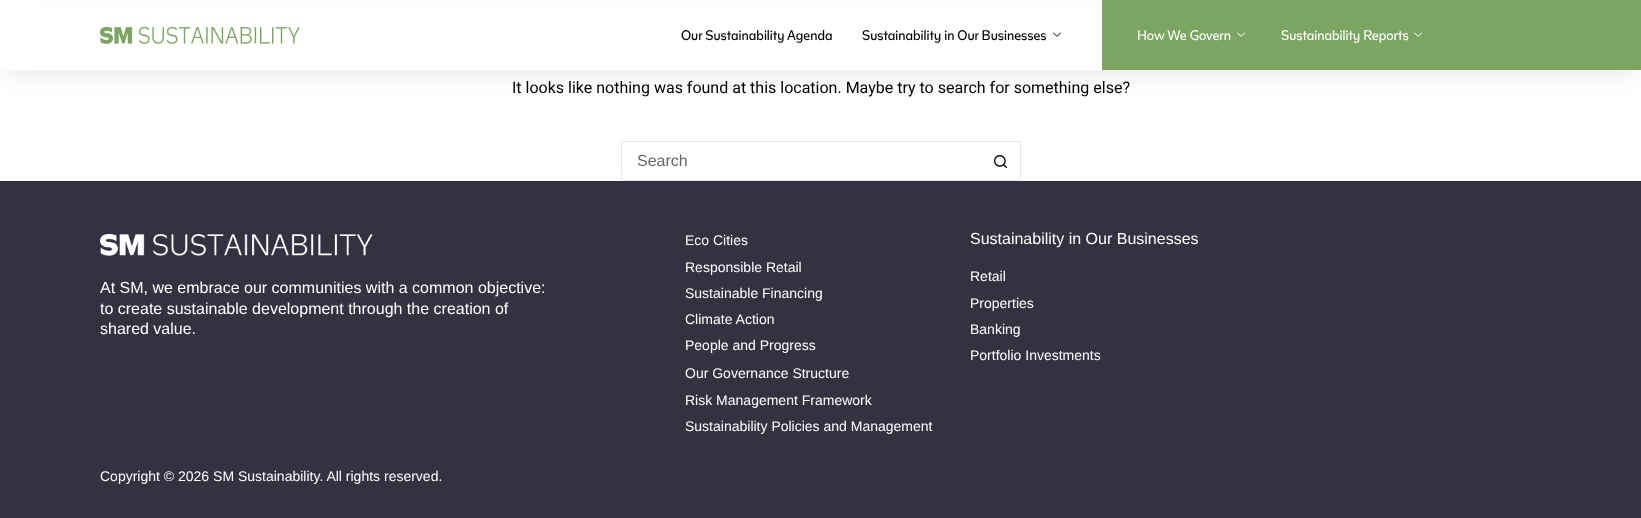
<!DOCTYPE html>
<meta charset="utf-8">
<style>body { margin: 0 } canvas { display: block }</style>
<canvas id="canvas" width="1641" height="518"></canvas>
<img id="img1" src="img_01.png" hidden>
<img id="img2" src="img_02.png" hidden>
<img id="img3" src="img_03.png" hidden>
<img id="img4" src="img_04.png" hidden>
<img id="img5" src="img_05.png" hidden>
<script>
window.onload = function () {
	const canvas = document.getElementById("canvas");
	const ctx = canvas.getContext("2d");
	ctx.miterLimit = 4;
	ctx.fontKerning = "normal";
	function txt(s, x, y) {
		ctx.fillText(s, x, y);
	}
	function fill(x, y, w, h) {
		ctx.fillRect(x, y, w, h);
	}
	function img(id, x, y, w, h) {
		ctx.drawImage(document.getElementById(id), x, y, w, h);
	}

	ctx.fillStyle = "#FFFFFF";
	fill(0, 0, 1641, 518);
	ctx.fillStyle = "rgba(0, 0, 0, 0.09)";
	ctx.filter = "blur(12px)";
	ctx.beginPath();
	ctx.rect(10, 25, 1621, 50);
	ctx.fill();
	ctx.filter = "none";
	ctx.fillStyle = "#FFFFFF";
	fill(0, 10, 1102, 60);
	img("img1", 100, 27, 200, 17);
	img("img2", 1053, 32, 8, 5);
	ctx.fillStyle = "#7BA560";
	fill(1102, 0, 539, 70);
	img("img3", 1237, 32, 8, 5);
	img("img3", 1414, 32, 8, 5);
	ctx.fillStyle = "#E1E8ED";
	ctx.beginPath();
	ctx.moveTo(624, 141);
	ctx.lineTo(981, 141);
	ctx.lineTo(981, 181);
	ctx.lineTo(624, 181);
	ctx.bezierCurveTo(622, 181, 621, 180, 621, 178);
	ctx.lineTo(621, 144);
	ctx.bezierCurveTo(621, 142, 622, 141, 624, 141);
	ctx.closePath();
	ctx.moveTo(624, 142);
	ctx.lineTo(981, 142);
	ctx.lineTo(981, 180);
	ctx.lineTo(623, 180);
	ctx.bezierCurveTo(621, 178, 622, 173, 622, 172);
	ctx.lineTo(622, 144);
	ctx.lineTo(623, 142);
	ctx.closePath();
	ctx.fill("evenodd");
	ctx.beginPath();
	ctx.moveTo(981, 141);
	ctx.lineTo(1018, 141);
	ctx.bezierCurveTo(1020, 141, 1021, 142, 1021, 144);
	ctx.lineTo(1021, 178);
	ctx.bezierCurveTo(1021, 180, 1020, 181, 1018, 181);
	ctx.lineTo(981, 181);
	ctx.closePath();
	ctx.moveTo(981, 142);
	ctx.lineTo(1018, 142);
	ctx.bezierCurveTo(1019, 142, 1020, 143, 1020, 144);
	ctx.lineTo(1020, 178);
	ctx.bezierCurveTo(1020, 179, 1019, 180, 1018, 180);
	ctx.lineTo(981, 180);
	ctx.closePath();
	ctx.fill("evenodd");
	img("img4", 994, 155, 13, 13);
	ctx.fillStyle = "#343240";
	fill(0, 181, 1641, 337);
	img("img5", 100, 234, 273, 22);
	ctx.font = "14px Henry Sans";
	ctx.fillStyle = "#000000";
	txt("Our Sustainability Agenda", 681, 40);
	txt("Sustainability in Our Businesses", 862, 40);
	ctx.fillStyle = "#FFFFFF";
	txt("How We Govern", 1137, 40);
	txt("Sustainability Reports", 1281, 40);
	ctx.font = "16px Roboto";
	ctx.fillStyle = "#000000";
	txt("It looks like nothing was found at this location. Maybe try to search for something else?", 512, 93);
	ctx.font = "16px Liberation Sans";
	ctx.fillStyle = "#666666";
	txt("Search", 637, 166);
	ctx.fillStyle = "#FFFFFF";
	txt("At SM, we embrace our communities with a common objective:", 100, 293);
	txt("to create sustainable development through the creation of", 100, 314);
	txt("shared value.", 100, 334);
	ctx.font = "14px Liberation Sans";
	txt("Eco Cities", 685, 245);
	txt("Responsible Retail", 685, 272);
	txt("Sustainable Financing", 685, 298);
	txt("Climate Action", 685, 324);
	txt("People and Progress", 685, 350);
	txt("Our Governance Structure", 685, 378);
	txt("Risk Management Framework", 685, 405);
	txt("Sustainability Policies and Management", 685, 431);
	ctx.font = "16px Liberation Sans";
	txt("Sustainability in Our Businesses", 970, 244);
	ctx.font = "14px Liberation Sans";
	txt("Retail", 970, 281);
	txt("Properties", 970, 308);
	txt("Banking", 970, 334);
	txt("Portfolio Investments", 970, 360);
	txt("Copyright © 2026 SM Sustainability. All rights reserved.", 100, 481);
};
</script>
